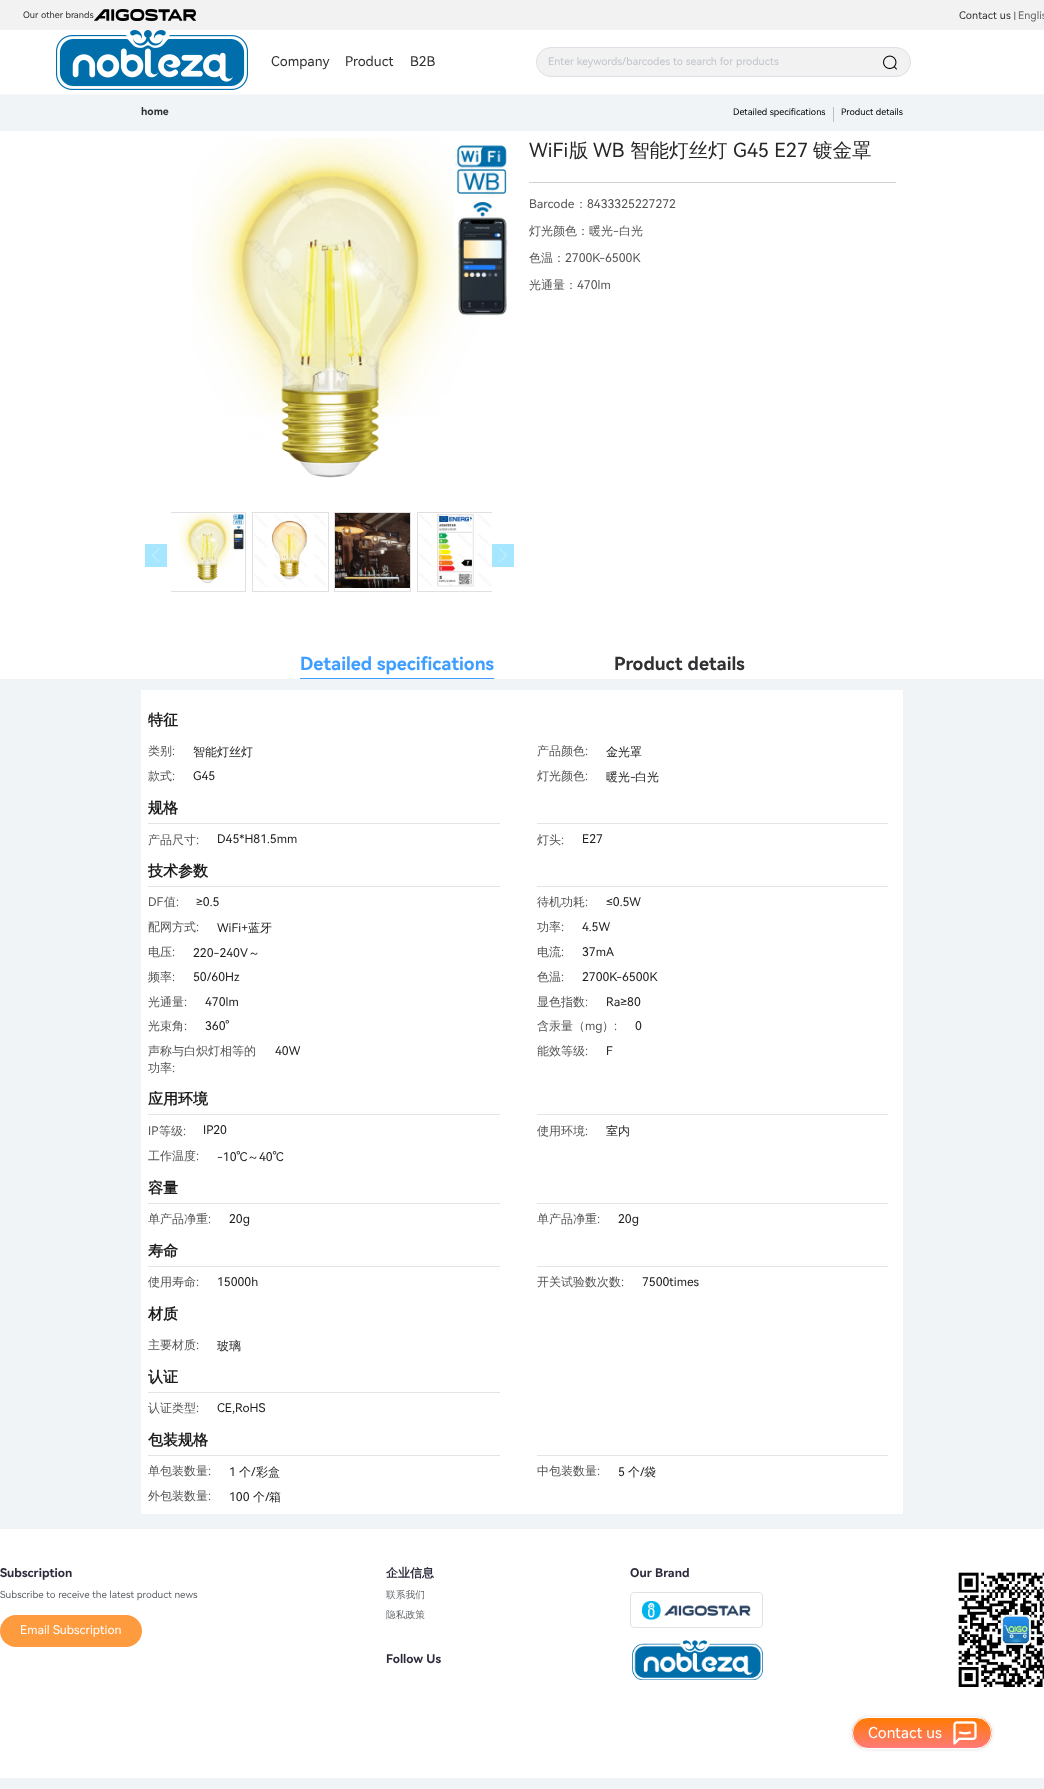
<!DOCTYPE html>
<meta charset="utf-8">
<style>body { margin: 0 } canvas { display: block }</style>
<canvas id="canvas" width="1044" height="1789"></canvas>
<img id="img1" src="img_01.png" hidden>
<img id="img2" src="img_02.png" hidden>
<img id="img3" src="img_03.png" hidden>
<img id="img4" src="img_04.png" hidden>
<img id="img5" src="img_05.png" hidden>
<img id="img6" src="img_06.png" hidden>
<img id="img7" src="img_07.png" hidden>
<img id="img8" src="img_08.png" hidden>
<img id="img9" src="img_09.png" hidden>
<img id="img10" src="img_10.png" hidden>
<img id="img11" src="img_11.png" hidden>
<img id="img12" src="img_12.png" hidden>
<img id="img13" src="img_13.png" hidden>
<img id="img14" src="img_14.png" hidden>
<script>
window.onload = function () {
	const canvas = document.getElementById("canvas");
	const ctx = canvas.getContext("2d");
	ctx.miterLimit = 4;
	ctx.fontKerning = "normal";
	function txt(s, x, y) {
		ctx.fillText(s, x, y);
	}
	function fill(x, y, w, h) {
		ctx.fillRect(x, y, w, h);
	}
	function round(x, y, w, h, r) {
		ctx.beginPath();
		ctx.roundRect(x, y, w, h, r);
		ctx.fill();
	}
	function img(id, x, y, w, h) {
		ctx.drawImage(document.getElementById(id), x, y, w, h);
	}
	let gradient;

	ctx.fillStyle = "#F1F4F7";
	fill(0, 0, 1044, 1789);
	ctx.fillStyle = "#F2F2F2";
	fill(0, 0, 1044, 30);
	img("img1", 94, 9, 102, 12);
	ctx.fillStyle = "#FFFFFF";
	fill(0, 30, 1044, 64);
	ctx.fillStyle = "#F5F7F9";
	fill(0, 94, 1044, 1);
	img("img2", 56, 30, 192, 60);
	ctx.fillStyle = "#F2F2F2";
	ctx.beginPath();
	ctx.roundRect(536.5, 47.5, 374, 29, 14.5);
	ctx.fill();
	ctx.strokeStyle = "#DCDFE6";
	ctx.stroke();
	img("img3", 883, 55, 14, 15);
	ctx.fillStyle = "#BFBFBF";
	fill(833, 107, 1, 15);
	ctx.fillStyle = "#FFFFFF";
	fill(0, 131, 1044, 548);
	img("img4", 191, 138, 317, 340);
	ctx.fillStyle = "#A6E7FF";
	fill(145, 544, 22, 23);
	img("img5", 152, 548, 8, 15);
	ctx.save();
	ctx.beginPath();
	ctx.rect(171, 512, 321, 80);
	ctx.clip();
	ctx.strokeStyle = "#E0E0E0";
	ctx.strokeRect(169.5, 512.5, 76, 79);
	ctx.restore();
	img("img6", 179, 513, 65, 70);
	ctx.strokeStyle = "#E0E0E0";
	ctx.strokeRect(252.5, 512.5, 76, 79);
	img("img7", 254, 514, 73, 73);
	ctx.strokeRect(334.5, 512.5, 76, 79);
	img("img8", 335, 513, 75, 75);
	ctx.save();
	ctx.beginPath();
	ctx.rect(171, 512, 321, 80);
	ctx.clip();
	ctx.strokeRect(417.5, 512.5, 76, 79);
	ctx.restore();
	img("img9", 418, 514, 74, 73);
	fill(492, 544, 22, 23);
	img("img10", 499, 548, 8, 15);
	ctx.fillStyle = "#D2D2D2";
	fill(529, 182, 367, 1);
	ctx.fillStyle = "#409EFF";
	fill(300, 678, 194, 1);
	ctx.fillStyle = "#FFFFFF";
	fill(141, 690, 762, 824);
	ctx.fillStyle = "#E4E4E4";
	fill(148, 823, 352, 1);
	fill(537, 823, 351, 1);
	fill(148, 886, 352, 1);
	fill(537, 886, 351, 1);
	fill(148, 1114, 352, 1);
	fill(537, 1114, 351, 1);
	fill(148, 1203, 352, 1);
	fill(537, 1203, 351, 1);
	fill(148, 1266, 352, 1);
	fill(537, 1266, 351, 1);
	fill(148, 1392, 352, 1);
	fill(148, 1455, 352, 1);
	fill(537, 1455, 351, 1);
	ctx.fillStyle = "#FFFFFF";
	fill(0, 1529, 1044, 249);
	ctx.fillStyle = "#FF9B3F";
	round(0, 1615, 142, 32, 16);
	img("img11", 630, 1592, 133, 36);
	img("img12", 632, 1640, 131, 40);
	img("img13", 958, 1572, 86, 115);
	ctx.fillStyle = "rgba(0, 0, 0, 0.12)";
	ctx.filter = "blur(2px)";
	ctx.beginPath();
	ctx.roundRect(852, 1717, 140, 32, 16);
	ctx.fill();
	ctx.filter = "none";
	ctx.save();
	ctx.beginPath();
	ctx.roundRect(852, 1717, 140, 32, 16);
	ctx.clip();
	gradient = ctx.createLinearGradient(922, 1718, 922, 1748);
	gradient.addColorStop(0, "#FF7A00");
	gradient.addColorStop(1, "#FF7979");
	ctx.fillStyle = gradient;
	fill(852, 1718, 140, 30);
	ctx.restore();
	ctx.beginPath();
	ctx.roundRect(852.5, 1717.5, 139, 31, 15.5);
	ctx.strokeStyle = "#FFFFFF";
	ctx.stroke();
	img("img14", 953, 1721, 24, 24);
	ctx.font = "9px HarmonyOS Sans";
	ctx.fillStyle = "#303133";
	txt("Our other brands", 23, 18);
	ctx.font = "10.5px HarmonyOS Sans";
	txt("Contact us", 959, 19);
	ctx.font = "9px HarmonyOS Sans";
	txt("|", 1014, 19);
	ctx.font = "10.5px HarmonyOS Sans";
	ctx.fillStyle = "#616569";
	txt("Englis", 1018, 19);
	ctx.font = "13.5px HarmonyOS Sans";
	ctx.fillStyle = "#303133";
	txt("Company", 271, 66);
	txt("Product", 345, 66);
	txt("B2B", 410, 66);
	ctx.font = "10.5px HarmonyOS Sans";
	ctx.fillStyle = "#C0C4CC";
	txt("Enter keywords/barcodes to search for products", 548, 65);
	ctx.font = "bold 10.5px HarmonyOS Sans";
	ctx.fillStyle = "#303133";
	txt("home", 141, 115);
	ctx.font = "9px HarmonyOS Sans";
	ctx.fillStyle = "#000000";
	txt("Detailed specifications", 733, 115);
	txt("Product details", 841, 115);
	ctx.font = "19.5px HarmonyOS Sans";
	ctx.fillStyle = "#262626";
	txt("WiFi", 529, 157);
	ctx.font = "500 19.5px WenQuanYi Zen Hei";
	txt("版", 569, 157);
	ctx.font = "19.5px HarmonyOS Sans";
	txt("WB", 593, 157);
	ctx.font = "500 19.5px WenQuanYi Zen Hei";
	txt("智能灯丝灯", 630, 157);
	ctx.font = "19.5px HarmonyOS Sans";
	txt("G45 E27", 733, 157);
	ctx.font = "500 19.5px WenQuanYi Zen Hei";
	txt("镀金罩", 813, 157);
	ctx.font = "12px HarmonyOS Sans";
	ctx.fillStyle = "#545454";
	txt("Barcode", 529, 208);
	ctx.font = "500 12px WenQuanYi Zen Hei";
	txt("：", 575, 208);
	ctx.font = "12px HarmonyOS Sans";
	txt("8433325227272", 587, 208);
	ctx.font = "500 12px WenQuanYi Zen Hei";
	txt("灯光颜色：暖光", 529, 235);
	ctx.font = "12px HarmonyOS Sans";
	txt("-", 613, 235);
	ctx.font = "500 12px WenQuanYi Zen Hei";
	txt("白光", 619, 235);
	txt("色温：", 529, 262);
	ctx.font = "12px HarmonyOS Sans";
	txt("2700K-6500K", 565, 262);
	ctx.font = "500 12px WenQuanYi Zen Hei";
	txt("光通量：", 529, 289);
	ctx.font = "12px HarmonyOS Sans";
	txt("470lm", 577, 289);
	ctx.font = "bold 18px HarmonyOS Sans";
	ctx.fillStyle = "#409EFF";
	txt("Detailed specifications", 300, 670);
	ctx.fillStyle = "#303133";
	txt("Product details", 614, 670);
	ctx.font = "bold 15px WenQuanYi Zen Hei";
	ctx.fillStyle = "#1C1C1C";
	txt("特征", 148, 725);
	ctx.font = "500 12px WenQuanYi Zen Hei";
	ctx.fillStyle = "#545454";
	txt("类别", 148, 755);
	ctx.font = "12px HarmonyOS Sans";
	txt(":", 172, 755);
	ctx.font = "500 12px WenQuanYi Zen Hei";
	ctx.fillStyle = "#1C1C1C";
	txt("智能灯丝灯", 193, 756);
	ctx.fillStyle = "#545454";
	txt("产品颜色", 537, 755);
	ctx.font = "12px HarmonyOS Sans";
	txt(":", 585, 755);
	ctx.font = "500 12px WenQuanYi Zen Hei";
	ctx.fillStyle = "#1C1C1C";
	txt("金光罩", 606, 756);
	ctx.fillStyle = "#545454";
	txt("款式", 148, 780);
	ctx.font = "12px HarmonyOS Sans";
	txt(":", 172, 780);
	ctx.fillStyle = "#1C1C1C";
	txt("G45", 193, 780);
	ctx.font = "500 12px WenQuanYi Zen Hei";
	ctx.fillStyle = "#545454";
	txt("灯光颜色", 537, 780);
	ctx.font = "12px HarmonyOS Sans";
	txt(":", 585, 780);
	ctx.font = "500 12px WenQuanYi Zen Hei";
	ctx.fillStyle = "#1C1C1C";
	txt("暖光", 606, 781);
	ctx.font = "12px HarmonyOS Sans";
	txt("-", 630, 781);
	ctx.font = "500 12px WenQuanYi Zen Hei";
	txt("白光", 635, 781);
	ctx.font = "bold 15px WenQuanYi Zen Hei";
	txt("规格", 148, 813);
	ctx.font = "500 12px WenQuanYi Zen Hei";
	ctx.fillStyle = "#545454";
	txt("产品尺寸", 148, 844);
	ctx.font = "12px HarmonyOS Sans";
	txt(":", 196, 844);
	ctx.fillStyle = "#1C1C1C";
	txt("D45*H81.5mm", 217, 843);
	ctx.font = "500 12px WenQuanYi Zen Hei";
	ctx.fillStyle = "#545454";
	txt("灯头", 537, 844);
	ctx.font = "12px HarmonyOS Sans";
	txt(":", 561, 844);
	ctx.fillStyle = "#1C1C1C";
	txt("E27", 582, 843);
	ctx.font = "bold 15px WenQuanYi Zen Hei";
	txt("技术参数", 148, 876);
	ctx.font = "12px HarmonyOS Sans";
	ctx.fillStyle = "#545454";
	txt("DF", 148, 906);
	ctx.font = "500 12px WenQuanYi Zen Hei";
	txt("值", 164, 906);
	ctx.font = "12px HarmonyOS Sans";
	txt(":", 176, 906);
	ctx.fillStyle = "#1C1C1C";
	txt("≥0.5", 196, 906);
	ctx.font = "500 12px WenQuanYi Zen Hei";
	ctx.fillStyle = "#545454";
	txt("待机功耗", 537, 906);
	ctx.font = "12px HarmonyOS Sans";
	txt(":", 585, 906);
	ctx.fillStyle = "#1C1C1C";
	txt("≤0.5W", 606, 906);
	ctx.font = "500 12px WenQuanYi Zen Hei";
	ctx.fillStyle = "#545454";
	txt("配网方式", 148, 931);
	ctx.font = "12px HarmonyOS Sans";
	txt(":", 196, 931);
	ctx.fillStyle = "#1C1C1C";
	txt("WiFi+", 217, 932);
	ctx.font = "500 12px WenQuanYi Zen Hei";
	txt("蓝牙", 248, 932);
	ctx.fillStyle = "#545454";
	txt("功率", 537, 931);
	ctx.font = "12px HarmonyOS Sans";
	txt(":", 561, 931);
	ctx.fillStyle = "#1C1C1C";
	txt("4.5W", 582, 931);
	ctx.font = "500 12px WenQuanYi Zen Hei";
	ctx.fillStyle = "#545454";
	txt("电压", 148, 956);
	ctx.font = "12px HarmonyOS Sans";
	txt(":", 172, 956);
	ctx.fillStyle = "#1C1C1C";
	txt("220-240V", 193, 957);
	ctx.font = "500 12px WenQuanYi Zen Hei";
	txt("～", 248, 957);
	ctx.fillStyle = "#545454";
	txt("电流", 537, 956);
	ctx.font = "12px HarmonyOS Sans";
	txt(":", 561, 956);
	ctx.fillStyle = "#1C1C1C";
	txt("37mA", 582, 956);
	ctx.font = "500 12px WenQuanYi Zen Hei";
	ctx.fillStyle = "#545454";
	txt("频率", 148, 981);
	ctx.font = "12px HarmonyOS Sans";
	txt(":", 172, 981);
	ctx.fillStyle = "#1C1C1C";
	txt("50/60Hz", 193, 981);
	ctx.font = "500 12px WenQuanYi Zen Hei";
	ctx.fillStyle = "#545454";
	txt("色温", 537, 981);
	ctx.font = "12px HarmonyOS Sans";
	txt(":", 561, 981);
	ctx.fillStyle = "#1C1C1C";
	txt("2700K-6500K", 582, 981);
	ctx.font = "500 12px WenQuanYi Zen Hei";
	ctx.fillStyle = "#545454";
	txt("光通量", 148, 1006);
	ctx.font = "12px HarmonyOS Sans";
	txt(":", 184, 1006);
	ctx.fillStyle = "#1C1C1C";
	txt("470lm", 205, 1006);
	ctx.font = "500 12px WenQuanYi Zen Hei";
	ctx.fillStyle = "#545454";
	txt("显色指数", 537, 1006);
	ctx.font = "12px HarmonyOS Sans";
	txt(":", 585, 1006);
	ctx.fillStyle = "#1C1C1C";
	txt("Ra≥80", 606, 1006);
	ctx.font = "500 12px WenQuanYi Zen Hei";
	ctx.fillStyle = "#545454";
	txt("光束角", 148, 1030);
	ctx.font = "12px HarmonyOS Sans";
	txt(":", 184, 1030);
	ctx.fillStyle = "#1C1C1C";
	txt("360°", 205, 1030);
	ctx.font = "500 12px WenQuanYi Zen Hei";
	ctx.fillStyle = "#545454";
	txt("含汞量（", 537, 1030);
	ctx.font = "12px HarmonyOS Sans";
	txt("mg", 585, 1030);
	ctx.font = "500 12px WenQuanYi Zen Hei";
	txt("）", 602, 1030);
	ctx.font = "12px HarmonyOS Sans";
	txt(":", 614, 1030);
	ctx.fillStyle = "#1C1C1C";
	txt("0", 635, 1030);
	ctx.font = "500 12px WenQuanYi Zen Hei";
	ctx.fillStyle = "#545454";
	txt("声称与白炽灯相等的", 148, 1055);
	txt("功率", 148, 1072);
	ctx.font = "12px HarmonyOS Sans";
	txt(":", 172, 1072);
	ctx.fillStyle = "#1C1C1C";
	txt("40W", 275, 1055);
	ctx.font = "500 12px WenQuanYi Zen Hei";
	ctx.fillStyle = "#545454";
	txt("能效等级", 537, 1055);
	ctx.font = "12px HarmonyOS Sans";
	txt(":", 585, 1055);
	ctx.fillStyle = "#1C1C1C";
	txt("F", 606, 1055);
	ctx.font = "bold 15px WenQuanYi Zen Hei";
	txt("应用环境", 148, 1104);
	ctx.font = "12px HarmonyOS Sans";
	ctx.fillStyle = "#545454";
	txt("IP", 148, 1135);
	ctx.font = "500 12px WenQuanYi Zen Hei";
	txt("等级", 159, 1135);
	ctx.font = "12px HarmonyOS Sans";
	txt(":", 183, 1135);
	ctx.fillStyle = "#1C1C1C";
	txt("IP20", 203, 1134);
	ctx.font = "500 12px WenQuanYi Zen Hei";
	ctx.fillStyle = "#545454";
	txt("使用环境", 537, 1135);
	ctx.font = "12px HarmonyOS Sans";
	txt(":", 585, 1135);
	ctx.font = "500 12px WenQuanYi Zen Hei";
	ctx.fillStyle = "#1C1C1C";
	txt("室内", 606, 1135);
	ctx.fillStyle = "#545454";
	txt("工作温度", 148, 1160);
	ctx.font = "12px HarmonyOS Sans";
	txt(":", 196, 1160);
	ctx.fillStyle = "#1C1C1C";
	txt("-10℃", 217, 1161);
	ctx.font = "500 12px WenQuanYi Zen Hei";
	txt("～", 247, 1161);
	ctx.font = "12px HarmonyOS Sans";
	txt("40℃", 259, 1161);
	ctx.font = "bold 15px WenQuanYi Zen Hei";
	txt("容量", 148, 1193);
	ctx.font = "500 12px WenQuanYi Zen Hei";
	ctx.fillStyle = "#545454";
	txt("单产品净重", 148, 1223);
	ctx.font = "12px HarmonyOS Sans";
	txt(":", 208, 1223);
	ctx.fillStyle = "#1C1C1C";
	txt("20g", 229, 1223);
	ctx.font = "500 12px WenQuanYi Zen Hei";
	ctx.fillStyle = "#545454";
	txt("单产品净重", 537, 1223);
	ctx.font = "12px HarmonyOS Sans";
	txt(":", 597, 1223);
	ctx.fillStyle = "#1C1C1C";
	txt("20g", 618, 1223);
	ctx.font = "bold 15px WenQuanYi Zen Hei";
	txt("寿命", 148, 1256);
	ctx.font = "500 12px WenQuanYi Zen Hei";
	ctx.fillStyle = "#545454";
	txt("使用寿命", 148, 1286);
	ctx.font = "12px HarmonyOS Sans";
	txt(":", 196, 1286);
	ctx.fillStyle = "#1C1C1C";
	txt("15000h", 217, 1286);
	ctx.font = "500 12px WenQuanYi Zen Hei";
	ctx.fillStyle = "#545454";
	txt("开关试验数次数", 537, 1286);
	ctx.font = "12px HarmonyOS Sans";
	txt(":", 621, 1286);
	ctx.fillStyle = "#1C1C1C";
	txt("7500times", 642, 1286);
	ctx.font = "bold 15px WenQuanYi Zen Hei";
	txt("材质", 148, 1319);
	ctx.font = "500 12px WenQuanYi Zen Hei";
	ctx.fillStyle = "#545454";
	txt("主要材质", 148, 1349);
	ctx.font = "12px HarmonyOS Sans";
	txt(":", 196, 1349);
	ctx.font = "500 12px WenQuanYi Zen Hei";
	ctx.fillStyle = "#1C1C1C";
	txt("玻璃", 217, 1350);
	ctx.font = "bold 15px WenQuanYi Zen Hei";
	txt("认证", 148, 1382);
	ctx.font = "500 12px WenQuanYi Zen Hei";
	ctx.fillStyle = "#545454";
	txt("认证类型", 148, 1412);
	ctx.font = "12px HarmonyOS Sans";
	txt(":", 196, 1412);
	ctx.fillStyle = "#1C1C1C";
	txt("CE,RoHS", 217, 1412);
	ctx.font = "bold 15px WenQuanYi Zen Hei";
	txt("包装规格", 148, 1445);
	ctx.font = "500 12px WenQuanYi Zen Hei";
	ctx.fillStyle = "#545454";
	txt("单包装数量", 148, 1475);
	ctx.font = "12px HarmonyOS Sans";
	txt(":", 208, 1475);
	ctx.fillStyle = "#1C1C1C";
	txt("1", 229, 1476);
	ctx.font = "500 12px WenQuanYi Zen Hei";
	txt("个", 239, 1476);
	ctx.font = "12px HarmonyOS Sans";
	txt("/", 251, 1476);
	ctx.font = "500 12px WenQuanYi Zen Hei";
	txt("彩盒", 256, 1476);
	ctx.fillStyle = "#545454";
	txt("中包装数量", 537, 1475);
	ctx.font = "12px HarmonyOS Sans";
	txt(":", 597, 1475);
	ctx.fillStyle = "#1C1C1C";
	txt("5", 618, 1476);
	ctx.font = "500 12px WenQuanYi Zen Hei";
	txt("个", 628, 1476);
	ctx.font = "12px HarmonyOS Sans";
	txt("/", 640, 1476);
	ctx.font = "500 12px WenQuanYi Zen Hei";
	txt("袋", 644, 1476);
	ctx.fillStyle = "#545454";
	txt("外包装数量", 148, 1500);
	ctx.font = "12px HarmonyOS Sans";
	txt(":", 208, 1500);
	ctx.fillStyle = "#1C1C1C";
	txt("100", 229, 1501);
	ctx.font = "500 12px WenQuanYi Zen Hei";
	txt("个", 253, 1501);
	ctx.font = "12px HarmonyOS Sans";
	txt("/", 265, 1501);
	ctx.font = "500 12px WenQuanYi Zen Hei";
	txt("箱", 269, 1501);
	ctx.font = "bold 12px HarmonyOS Sans";
	ctx.fillStyle = "#2D2C3D";
	txt("Subscription", 0, 1577);
	ctx.font = "9.75px HarmonyOS Sans";
	ctx.fillStyle = "#616569";
	txt("Subscribe to receive the latest product news", 0, 1598);
	ctx.font = "12px HarmonyOS Sans";
	ctx.fillStyle = "#FFFFFF";
	txt("Email Subscription", 20, 1634);
	ctx.font = "bold 12px WenQuanYi Zen Hei";
	ctx.fillStyle = "#2D2C3D";
	txt("企业信息", 386, 1577);
	ctx.font = "500 9.75px WenQuanYi Zen Hei";
	ctx.fillStyle = "#616569";
	txt("联系我们", 386, 1598);
	txt("隐私政策", 386, 1618);
	ctx.font = "bold 12px HarmonyOS Sans";
	ctx.fillStyle = "#2D2C3D";
	txt("Follow Us", 386, 1663);
	txt("Our Brand", 630, 1577);
	ctx.font = "15px HarmonyOS Sans";
	ctx.fillStyle = "#FFFFFF";
	txt("Contact us", 868, 1738);
};
</script>
